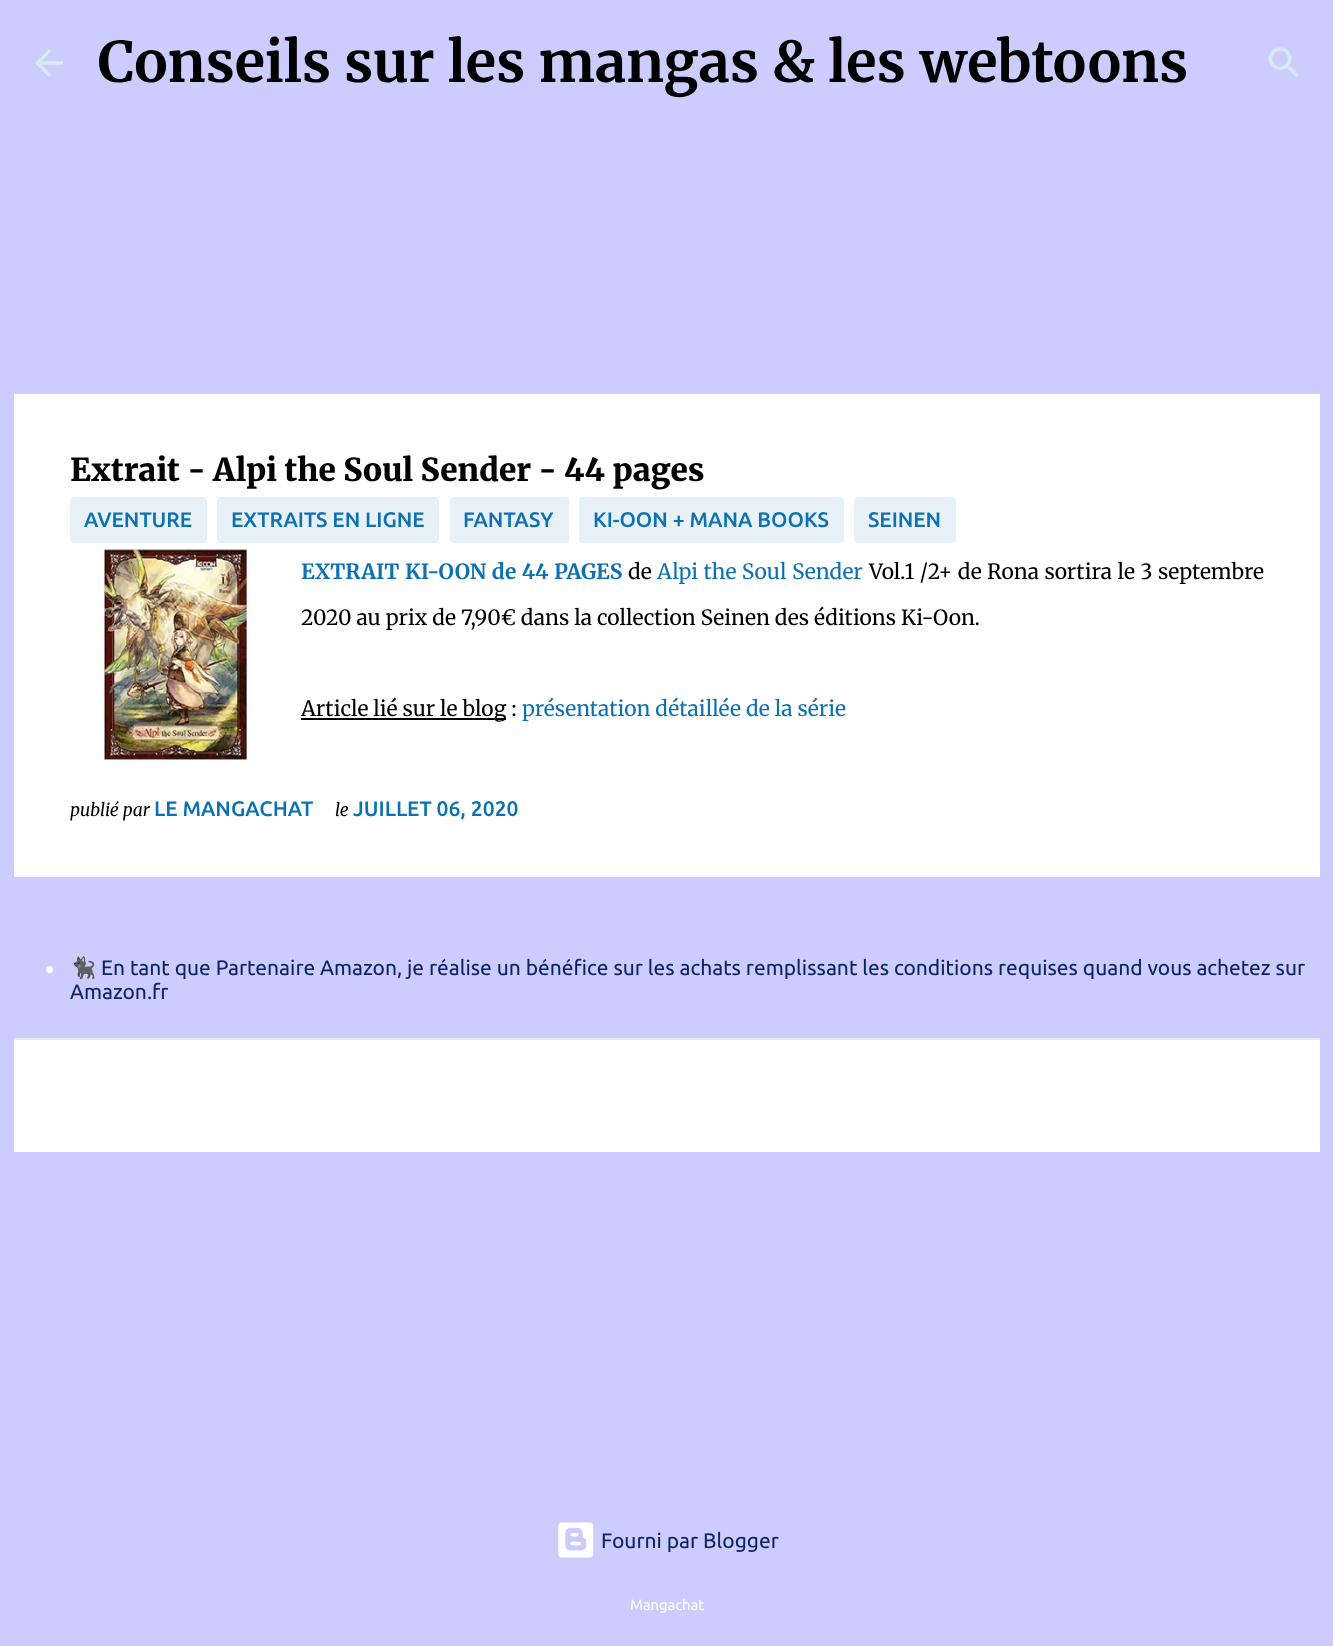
<!DOCTYPE html>
<meta charset="utf-8">
<style>body { margin: 0 } canvas { display: block }</style>
<canvas id="canvas" width="1333" height="1646"></canvas>
<img id="img1" src="img_01.png" hidden>
<img id="img2" src="img_02.png" hidden>
<img id="img3" src="img_03.png" hidden>
<img id="img4" src="img_04.png" hidden>
<script>
window.onload = function () {
	const canvas = document.getElementById("canvas");
	const ctx = canvas.getContext("2d");
	ctx.miterLimit = 4;
	ctx.fontKerning = "normal";
	function txt(s, x, y) {
		ctx.fillText(s, x, y);
	}
	function fill(x, y, w, h) {
		ctx.fillRect(x, y, w, h);
	}
	function round(x, y, w, h, r) {
		ctx.beginPath();
		ctx.roundRect(x, y, w, h, r);
		ctx.fill();
	}
	function img(id, x, y, w, h) {
		ctx.drawImage(document.getElementById(id), x, y, w, h);
	}

	ctx.fillStyle = "#CCCCFF";
	fill(0, 0, 1333, 1646);
	img("img1", 35, 49, 28, 28);
	img("img2", 1268, 47, 32, 31);
	ctx.fillStyle = "#FFFFFF";
	fill(14, 394, 1306, 483);
	ctx.fillStyle = "#E7F1F7";
	round(70, 497, 137, 46, 4);
	round(217, 497, 222, 46, 4);
	round(450, 497, 119, 46, 4);
	round(579, 497, 265, 46, 4);
	round(854, 497, 102, 46, 4);
	img("img3", 98, 549, 154, 211);
	ctx.fillStyle = "#000000";
	fill(301, 718, 205, 2);
	ctx.fillStyle = "#FFFFFF";
	fill(14, 1040, 1306, 112);
	ctx.fillStyle = "#E9E9E9";
	fill(14, 1038, 1306, 2);
	ctx.fillStyle = "#FFFFFF";
	ctx.beginPath();
	ctx.arc(49.5, 969.5, 3.5, 0, Math.PI * 2);
	ctx.fill();
	img("img4", 558, 1522, 36, 36);
	ctx.font = "bold 56px Merriweather";
	ctx.fillStyle = "#000000";
	txt("Conseils sur les mangas & les webtoons", 98, 82);
	ctx.font = "900 31.5px Merriweather";
	txt("Extrait - Alpi the Soul Sender - 44 pages", 70, 481);
	ctx.font = "500 21px Ubuntu";
	ctx.fillStyle = "#0D71B2";
	txt("AVENTURE", 84, 527);
	txt("EXTRAITS EN LIGNE", 231, 527);
	txt("FANTASY", 463, 527);
	txt("KI-OON + MANA BOOKS", 593, 527);
	txt("SEINEN", 868, 527);
	ctx.wordSpacing = "0.5px";
	ctx.font = "bold 21px Merriweather";
	txt("EXTRAIT KI-OON de 44 PAGES", 301, 579);
	ctx.wordSpacing = "0px";
	ctx.font = "21px Merriweather";
	ctx.fillStyle = "#000000";
	txt("de", 628, 579);
	ctx.wordSpacing = "0.5px";
	ctx.fillStyle = "#0D71B2";
	txt("Alpi the Soul Sender", 657, 579);
	ctx.fillStyle = "#000000";
	txt("Vol.1 /2+ de Rona sortira le 3 septembre", 869, 579);
	ctx.wordSpacing = "0px";
	txt("2020 au prix de 7,90€ dans la collection Seinen des éditions Ki-Oon.", 301, 625);
	txt("Article lié sur le blog :", 301, 716);
	ctx.fillStyle = "#0D71B2";
	txt("présentation détaillée de la série", 522, 716);
	ctx.font = "italic 17.5px Merriweather";
	ctx.fillStyle = "#000000";
	txt("publié par", 70, 816);
	ctx.font = "500 21px Ubuntu";
	ctx.fillStyle = "#0D71B2";
	txt("LE MANGACHAT", 154, 816);
	ctx.font = "italic 17.5px Merriweather";
	ctx.fillStyle = "#000000";
	txt("le", 335, 816);
	ctx.font = "500 21px Ubuntu";
	ctx.fillStyle = "#0D71B2";
	txt("JUILLET 06, 2020", 353, 816);
	ctx.font = "21px Noto Color Emoji";
	ctx.fillStyle = "#0D2566";
	txt("🐈‍⬛", 70, 975);
	ctx.font = "21px Ubuntu";
	txt("En tant que Partenaire Amazon, je réalise un bénéfice sur les achats remplissant les conditions requises quand vous achetez sur", 101, 975);
	txt("Amazon.fr", 70, 999);
	txt("Fourni par Blogger", 601, 1548);
	ctx.font = "14.75px Ubuntu";
	ctx.fillStyle = "#FFFFFF";
	txt("Mangachat", 630, 1610);
};
</script>
